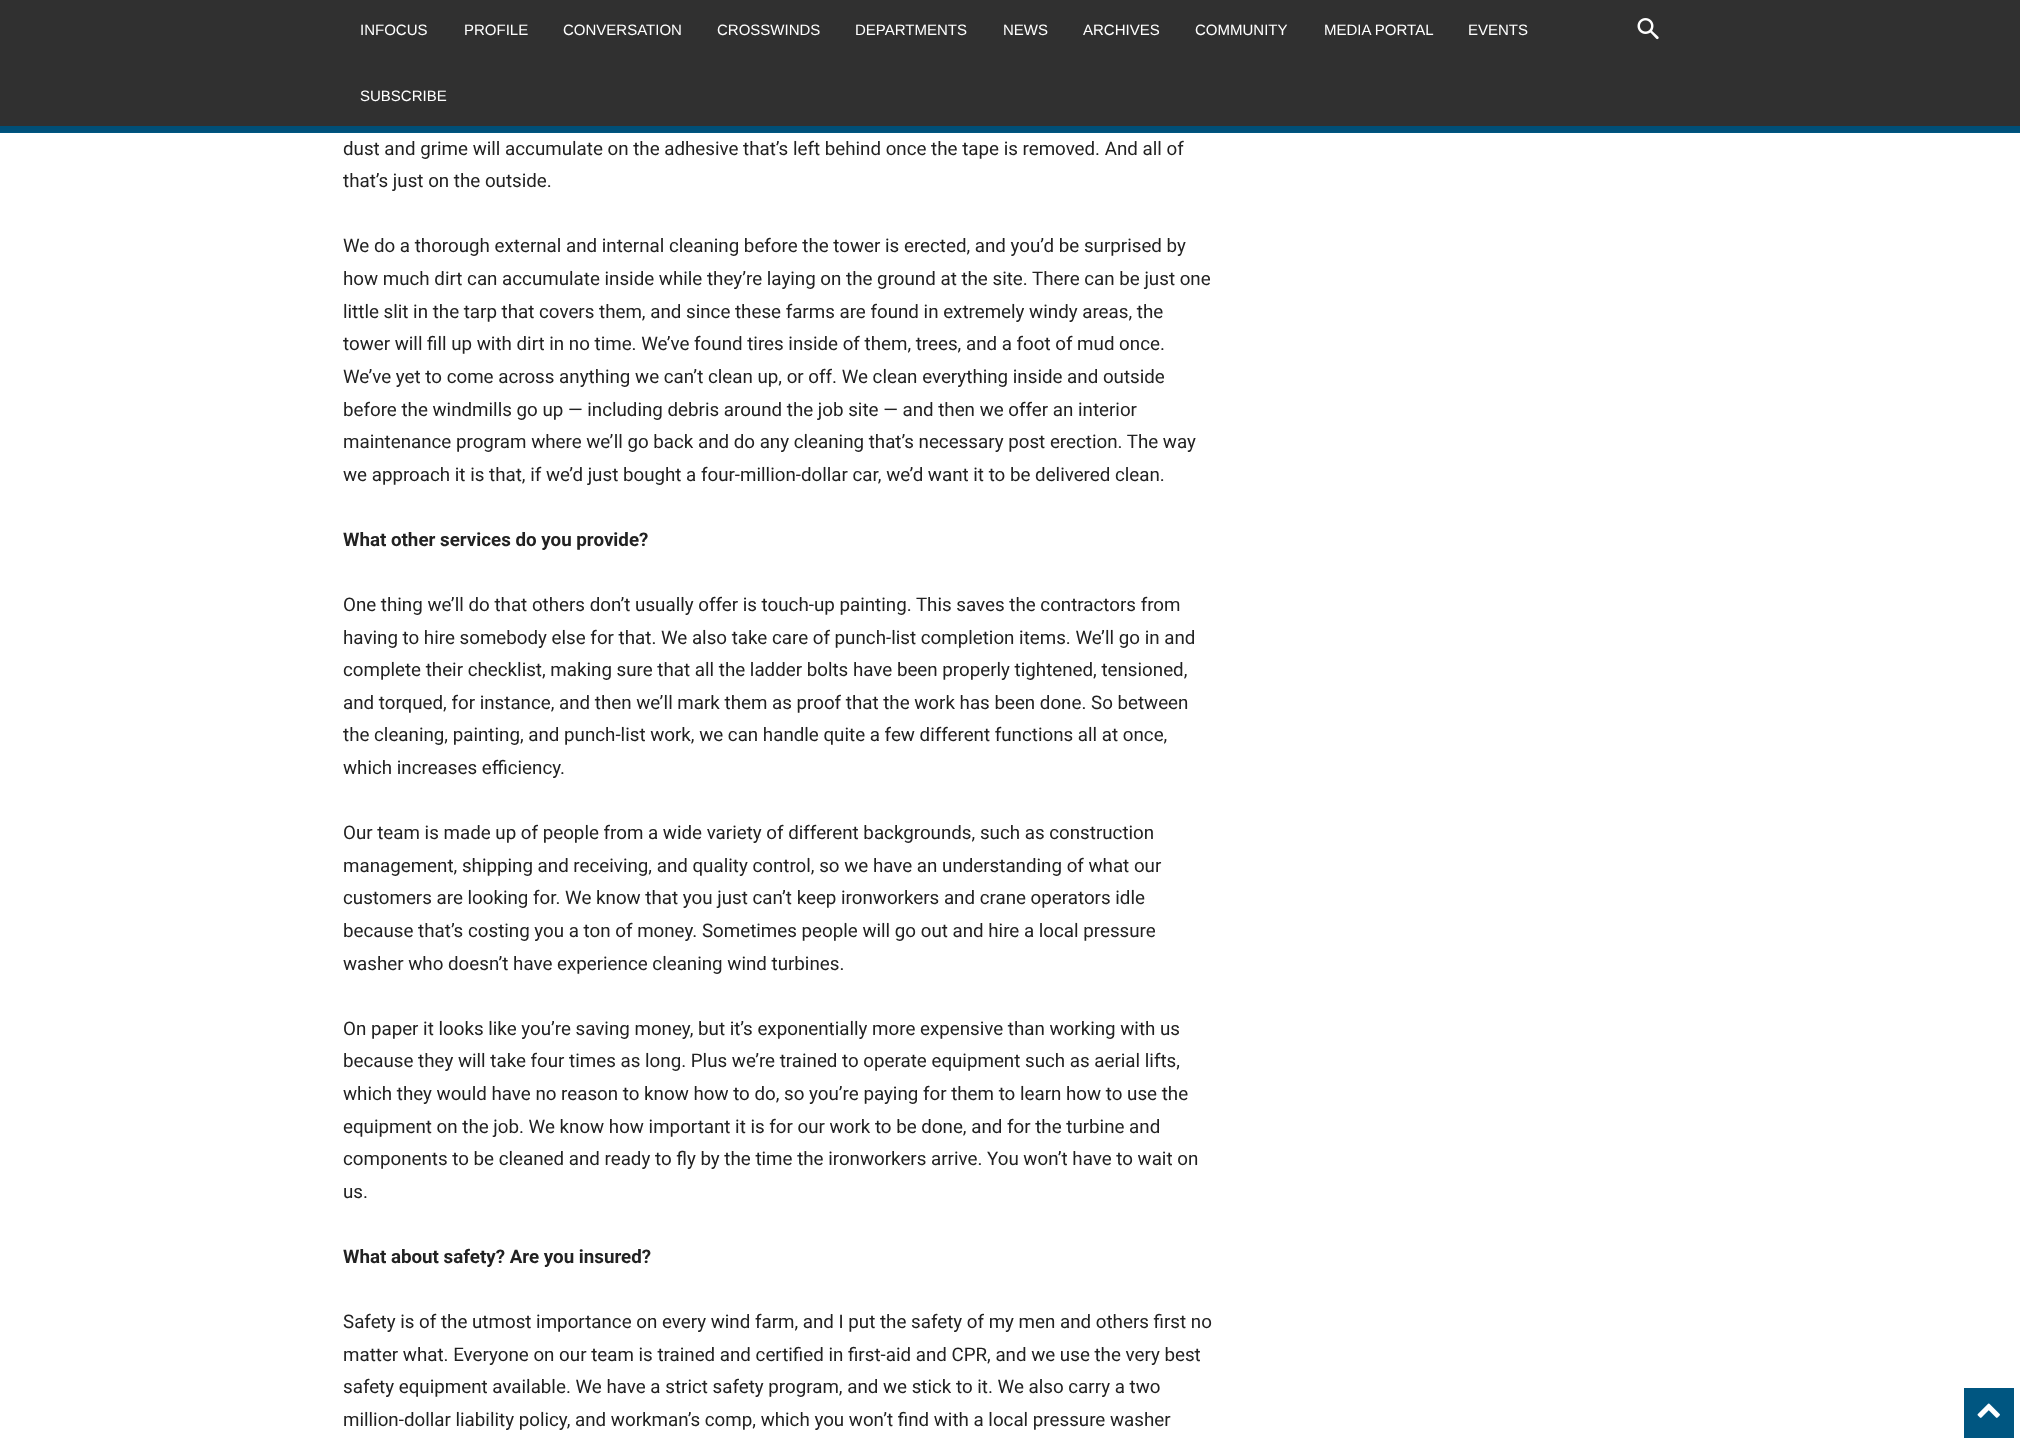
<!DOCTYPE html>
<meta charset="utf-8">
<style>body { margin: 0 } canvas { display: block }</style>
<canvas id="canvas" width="2020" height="1442"></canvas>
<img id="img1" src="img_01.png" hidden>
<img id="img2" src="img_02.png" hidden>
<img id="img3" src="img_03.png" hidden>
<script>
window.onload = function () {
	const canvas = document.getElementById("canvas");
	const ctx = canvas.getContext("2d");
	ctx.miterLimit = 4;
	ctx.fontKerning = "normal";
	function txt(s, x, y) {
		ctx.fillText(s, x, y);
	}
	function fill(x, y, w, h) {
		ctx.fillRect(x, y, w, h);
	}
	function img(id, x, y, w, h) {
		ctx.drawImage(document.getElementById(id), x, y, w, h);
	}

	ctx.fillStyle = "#FFFFFF";
	fill(0, 0, 2020, 1442);
	ctx.fillStyle = "#303030";
	fill(0, 0, 2020, 126);
	img("img1", 1637, 18, 22, 22);
	ctx.fillStyle = "#005681";
	fill(0, 126, 2020, 7);
	img("img2", 0, 126, 2020, 6);
	fill(1964, 1388, 50, 50);
	img("img3", 1977, 1403, 23, 15);
	ctx.font = "15px Liberation Sans";
	ctx.fillStyle = "#FFFFFF";
	txt("INFOCUS", 360, 35);
	txt("PROFILE", 464, 35);
	txt("CONVERSATION", 563, 35);
	txt("CROSSWINDS", 717, 35);
	txt("DEPARTMENTS", 855, 35);
	txt("NEWS", 1003, 35);
	txt("ARCHIVES", 1083, 35);
	txt("COMMUNITY", 1195, 35);
	txt("MEDIA PORTAL", 1324, 35);
	txt("EVENTS", 1468, 35);
	txt("SUBSCRIBE", 360, 101);
	ctx.font = "18.75px Roboto";
	ctx.fillStyle = "#222222";
	txt("dust and grime will accumulate on the adhesive that’s left behind once the tape is removed. And all of", 343, 155);
	txt("that’s just on the outside.", 343, 187);
	txt("We do a thorough external and internal cleaning before the tower is erected, and you’d be surprised by", 343, 252);
	txt("how much dirt can accumulate inside while they’re laying on the ground at the site. There can be just one", 343, 285);
	txt("little slit in the tarp that covers them, and since these farms are found in extremely windy areas, the", 343, 318);
	txt("tower will fill up with dirt in no time. We’ve found tires inside of them, trees, and a foot of mud once.", 343, 350);
	txt("We’ve yet to come across anything we can’t clean up, or off. We clean everything inside and outside", 343, 383);
	txt("before the windmills go up — including debris around the job site — and then we offer an interior", 343, 416);
	txt("maintenance program where we’ll go back and do any cleaning that’s necessary post erection. The way", 343, 448);
	txt("we approach it is that, if we’d just bought a four-million-dollar car, we’d want it to be delivered clean.", 343, 481);
	ctx.font = "bold 18.75px Roboto";
	txt("What other services do you provide?", 343, 546);
	ctx.font = "18.75px Roboto";
	txt("One thing we’ll do that others don’t usually offer is touch-up painting. This saves the contractors from", 343, 611);
	txt("having to hire somebody else for that. We also take care of punch-list completion items. We’ll go in and", 343, 644);
	txt("complete their checklist, making sure that all the ladder bolts have been properly tightened, tensioned,", 343, 676);
	txt("and torqued, for instance, and then we’ll mark them as proof that the work has been done. So between", 343, 709);
	txt("the cleaning, painting, and punch-list work, we can handle quite a few different functions all at once,", 343, 741);
	txt("which increases efficiency.", 343, 774);
	txt("Our team is made up of people from a wide variety of different backgrounds, such as construction", 343, 839);
	txt("management, shipping and receiving, and quality control, so we have an understanding of what our", 343, 872);
	txt("customers are looking for. We know that you just can’t keep ironworkers and crane operators idle", 343, 904);
	txt("because that’s costing you a ton of money. Sometimes people will go out and hire a local pressure", 343, 937);
	txt("washer who doesn’t have experience cleaning wind turbines.", 343, 970);
	txt("On paper it looks like you’re saving money, but it’s exponentially more expensive than working with us", 343, 1035);
	txt("because they will take four times as long. Plus we’re trained to operate equipment such as aerial lifts,", 343, 1067);
	txt("which they would have no reason to know how to do, so you’re paying for them to learn how to use the", 343, 1100);
	txt("equipment on the job. We know how important it is for our work to be done, and for the turbine and", 343, 1133);
	txt("components to be cleaned and ready to fly by the time the ironworkers arrive. You won’t have to wait on", 343, 1165);
	txt("us.", 343, 1198);
	ctx.font = "bold 18.75px Roboto";
	txt("What about safety? Are you insured?", 343, 1263);
	ctx.font = "18.75px Roboto";
	txt("Safety is of the utmost importance on every wind farm, and I put the safety of my men and others first no", 343, 1328);
	txt("matter what. Everyone on our team is trained and certified in first-aid and CPR, and we use the very best", 343, 1361);
	txt("safety equipment available. We have a strict safety program, and we stick to it. We also carry a two", 343, 1393);
	txt("million-dollar liability policy, and workman’s comp, which you won’t find with a local pressure washer", 343, 1426);
};
</script>
